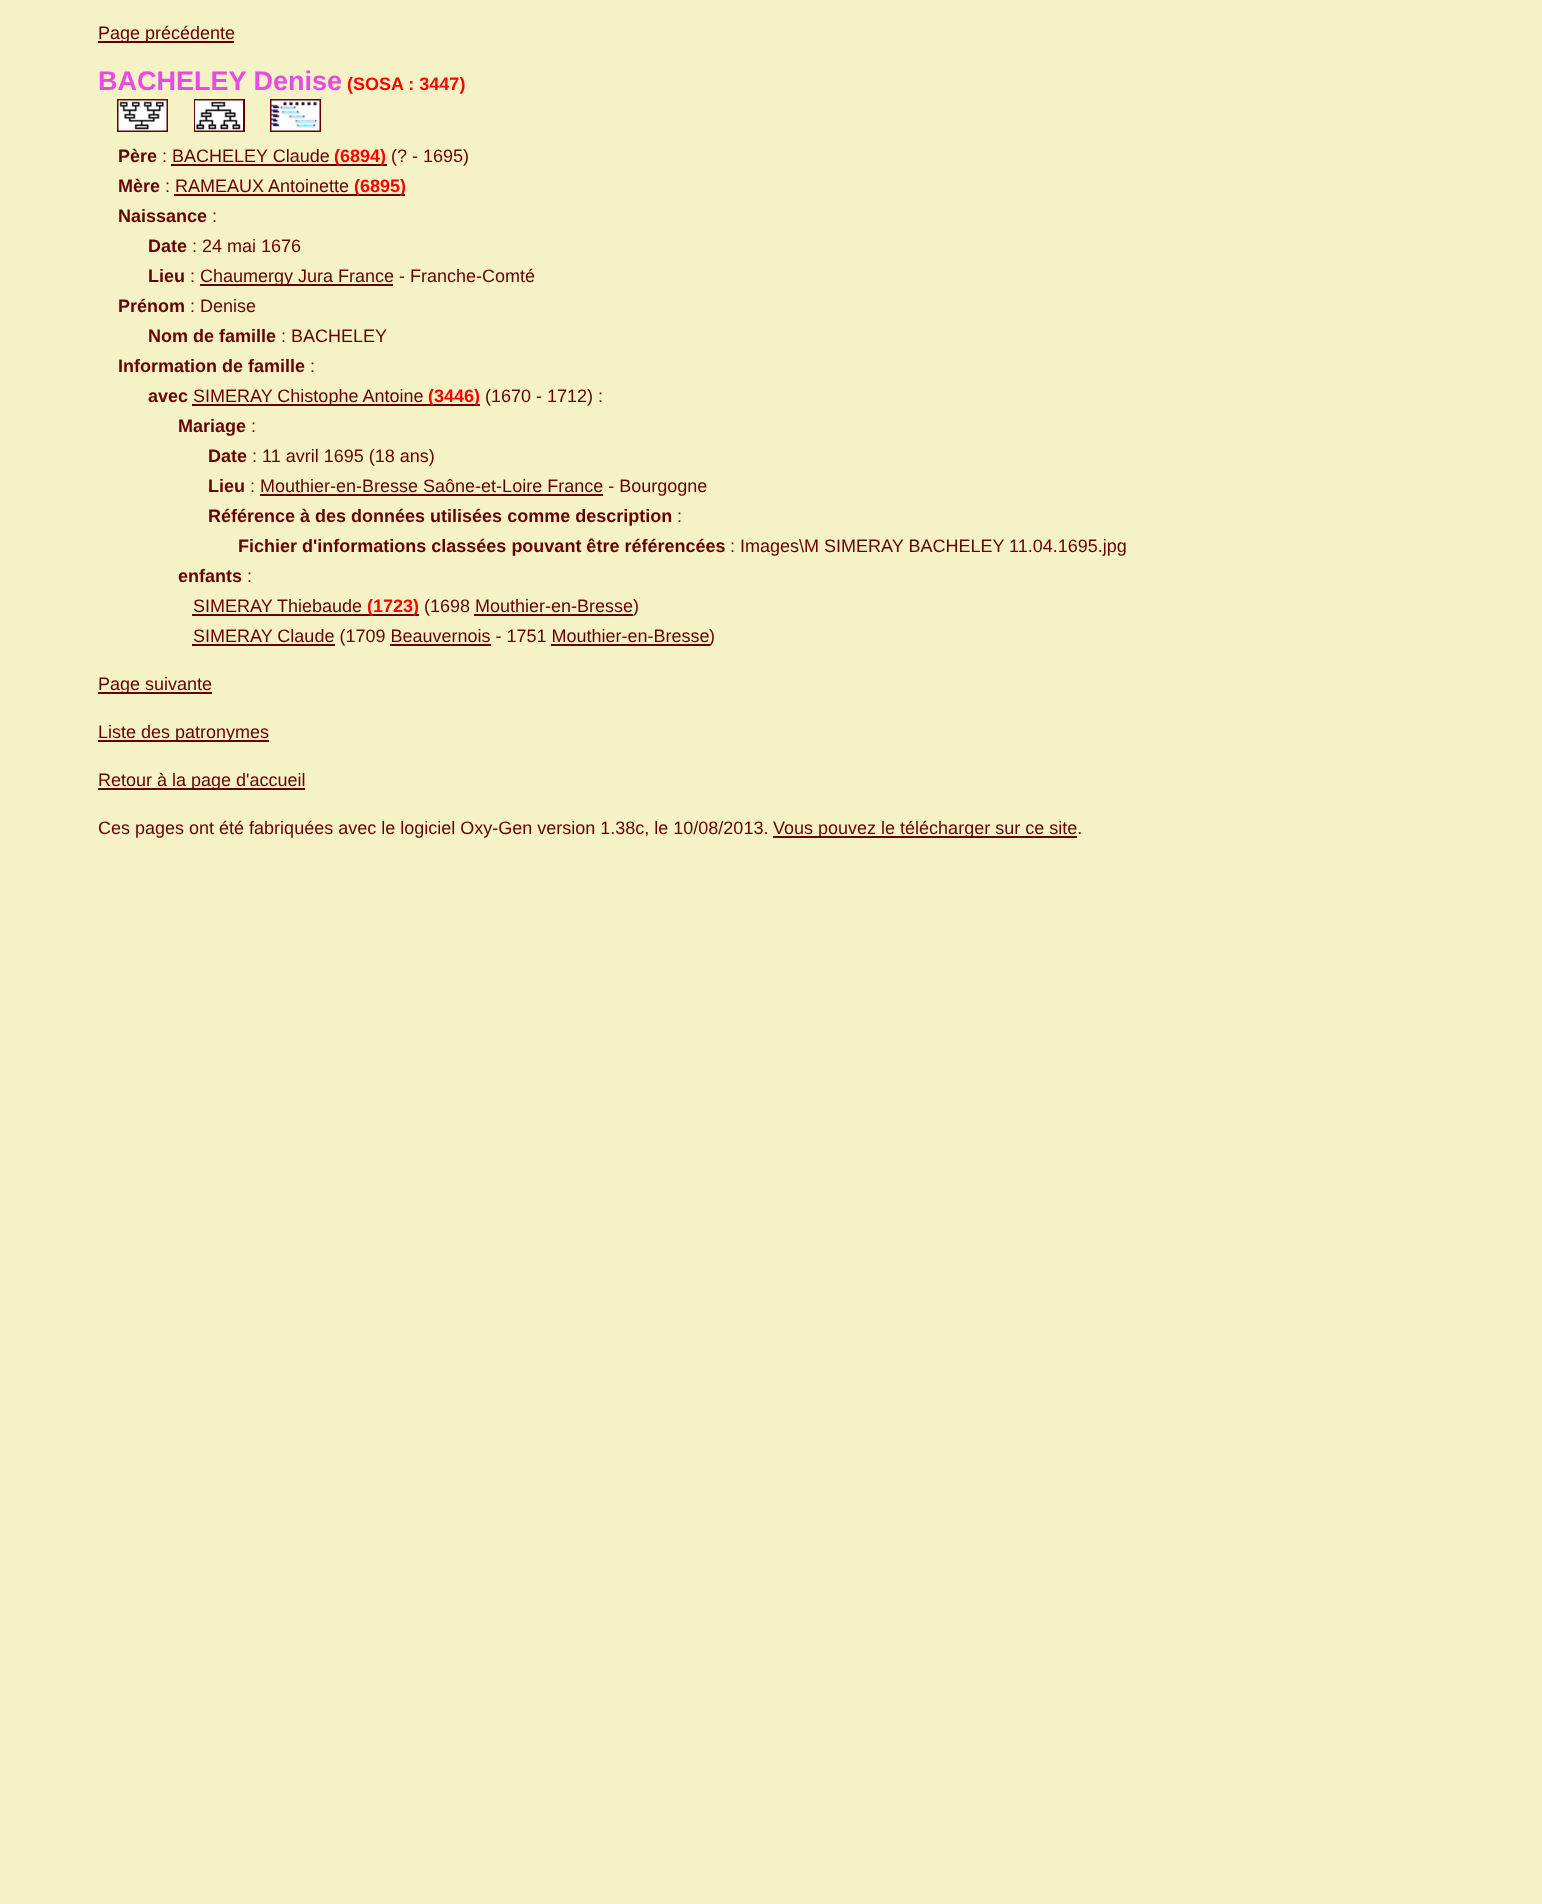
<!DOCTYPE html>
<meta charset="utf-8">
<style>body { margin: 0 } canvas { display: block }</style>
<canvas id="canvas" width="1542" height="1904"></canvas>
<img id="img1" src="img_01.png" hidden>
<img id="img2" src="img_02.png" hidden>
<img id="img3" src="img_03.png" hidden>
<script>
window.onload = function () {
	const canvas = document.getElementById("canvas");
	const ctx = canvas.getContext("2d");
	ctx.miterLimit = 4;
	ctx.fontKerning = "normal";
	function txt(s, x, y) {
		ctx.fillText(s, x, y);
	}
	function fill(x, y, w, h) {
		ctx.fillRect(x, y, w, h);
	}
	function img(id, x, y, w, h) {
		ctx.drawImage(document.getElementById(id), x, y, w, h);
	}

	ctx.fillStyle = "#F5F3C5";
	fill(0, 0, 1542, 1904);
	ctx.fillStyle = "#660000";
	fill(98, 41, 136, 2);
	ctx.strokeStyle = "#660000";
	ctx.lineWidth = 2;
	ctx.strokeRect(118, 100, 49, 31);
	ctx.strokeRect(195, 100, 49, 31);
	ctx.strokeRect(271, 100, 49, 31);
	img("img1", 118, 100, 49, 31);
	img("img2", 195, 100, 48, 31);
	img("img3", 271, 100, 49, 31);
	fill(171, 164, 216, 2);
	fill(174, 194, 231, 2);
	fill(200, 284, 193, 2);
	fill(192, 404, 288, 2);
	fill(260, 494, 343, 2);
	fill(192, 614, 227, 2);
	fill(474, 614, 159, 2);
	fill(192, 644, 143, 2);
	fill(390, 644, 101, 2);
	fill(551, 644, 159, 2);
	fill(98, 692, 114, 2);
	fill(98, 740, 171, 2);
	fill(98, 788, 207, 2);
	fill(773, 836, 304, 2);
	ctx.font = "18px Liberation Sans";
	txt("Page précédente", 98, 39);
	ctx.font = "bold 27px Liberation Sans";
	ctx.fillStyle = "#E84AE3";
	txt("BACHELEY Denise", 98, 90);
	ctx.font = "bold 18px Liberation Sans";
	ctx.fillStyle = "#FF0000";
	txt("(SOSA : 3447)", 347, 90);
	ctx.fillStyle = "#660000";
	txt("Père", 118, 162);
	ctx.font = "18px Liberation Sans";
	txt(": BACHELEY Claude", 162, 162);
	ctx.font = "bold 18px Liberation Sans";
	ctx.fillStyle = "#FF0000";
	txt("(6894)", 334, 162);
	ctx.font = "18px Liberation Sans";
	ctx.fillStyle = "#660000";
	txt("(? - 1695)", 391, 162);
	ctx.font = "bold 18px Liberation Sans";
	txt("Mère", 118, 192);
	ctx.font = "18px Liberation Sans";
	txt(": RAMEAUX Antoinette", 165, 192);
	ctx.font = "bold 18px Liberation Sans";
	ctx.fillStyle = "#FF0000";
	txt("(6895)", 354, 192);
	ctx.fillStyle = "#660000";
	txt("Naissance", 118, 222);
	ctx.font = "18px Liberation Sans";
	txt(":", 212, 222);
	ctx.font = "bold 18px Liberation Sans";
	txt("Date", 148, 252);
	ctx.font = "18px Liberation Sans";
	txt(": 24 mai 1676", 192, 252);
	ctx.font = "bold 18px Liberation Sans";
	txt("Lieu", 148, 282);
	ctx.font = "18px Liberation Sans";
	txt(":", 190, 282);
	txt("Chaumergy Jura France - Franche-Comté", 200, 282);
	ctx.font = "bold 18px Liberation Sans";
	txt("Prénom", 118, 312);
	ctx.font = "18px Liberation Sans";
	txt(": Denise", 190, 312);
	ctx.font = "bold 18px Liberation Sans";
	txt("Nom de famille", 148, 342);
	ctx.font = "18px Liberation Sans";
	txt(": BACHELEY", 281, 342);
	ctx.font = "bold 18px Liberation Sans";
	txt("Information de famille", 118, 372);
	ctx.font = "18px Liberation Sans";
	txt(":", 310, 372);
	ctx.font = "bold 18px Liberation Sans";
	txt("avec", 148, 402);
	ctx.font = "18px Liberation Sans";
	txt("SIMERAY Chistophe Antoine", 193, 402);
	ctx.font = "bold 18px Liberation Sans";
	ctx.fillStyle = "#FF0000";
	txt("(3446)", 428, 402);
	ctx.font = "18px Liberation Sans";
	ctx.fillStyle = "#660000";
	txt("(1670 - 1712) :", 485, 402);
	ctx.font = "bold 18px Liberation Sans";
	txt("Mariage", 178, 432);
	ctx.font = "18px Liberation Sans";
	txt(":", 251, 432);
	ctx.font = "bold 18px Liberation Sans";
	txt("Date", 208, 462);
	ctx.font = "18px Liberation Sans";
	txt(": 11 avril 1695 (18 ans)", 252, 462);
	ctx.font = "bold 18px Liberation Sans";
	txt("Lieu", 208, 492);
	ctx.font = "18px Liberation Sans";
	txt(": Mouthier-en-Bresse Saône-et-Loire France - Bourgogne", 250, 492);
	ctx.font = "bold 18px Liberation Sans";
	txt("Référence à des données utilisées comme description", 208, 522);
	ctx.font = "18px Liberation Sans";
	txt(":", 677, 522);
	ctx.font = "bold 18px Liberation Sans";
	txt("Fichier d'informations classées pouvant être référencées", 238, 552);
	ctx.font = "18px Liberation Sans";
	txt(": Images\\M SIMERAY BACHELEY 11.04.1695.jpg", 730, 552);
	ctx.font = "bold 18px Liberation Sans";
	txt("enfants", 178, 582);
	ctx.font = "18px Liberation Sans";
	txt(":", 247, 582);
	txt("SIMERAY Thiebaude", 193, 612);
	ctx.font = "bold 18px Liberation Sans";
	ctx.fillStyle = "#FF0000";
	txt("(1723)", 367, 612);
	ctx.font = "18px Liberation Sans";
	ctx.fillStyle = "#660000";
	txt("(1698 Mouthier-en-Bresse", 424, 612);
	txt(")", 633, 612);
	txt("SIMERAY Claude (1709 Beauvernois - 1751 Mouthier-en-Bresse", 193, 642);
	txt(")", 709, 642);
	txt("Page suivante", 98, 690);
	txt("Liste des patronymes", 98, 738);
	txt("Retour à la page d'accueil", 98, 786);
	txt("Ces pages ont été fabriquées avec le logiciel Oxy-Gen version 1.38c, le 10/08/2013.", 98, 834);
	txt("Vous pouvez le télécharger sur ce site.", 773, 834);
};
</script>
